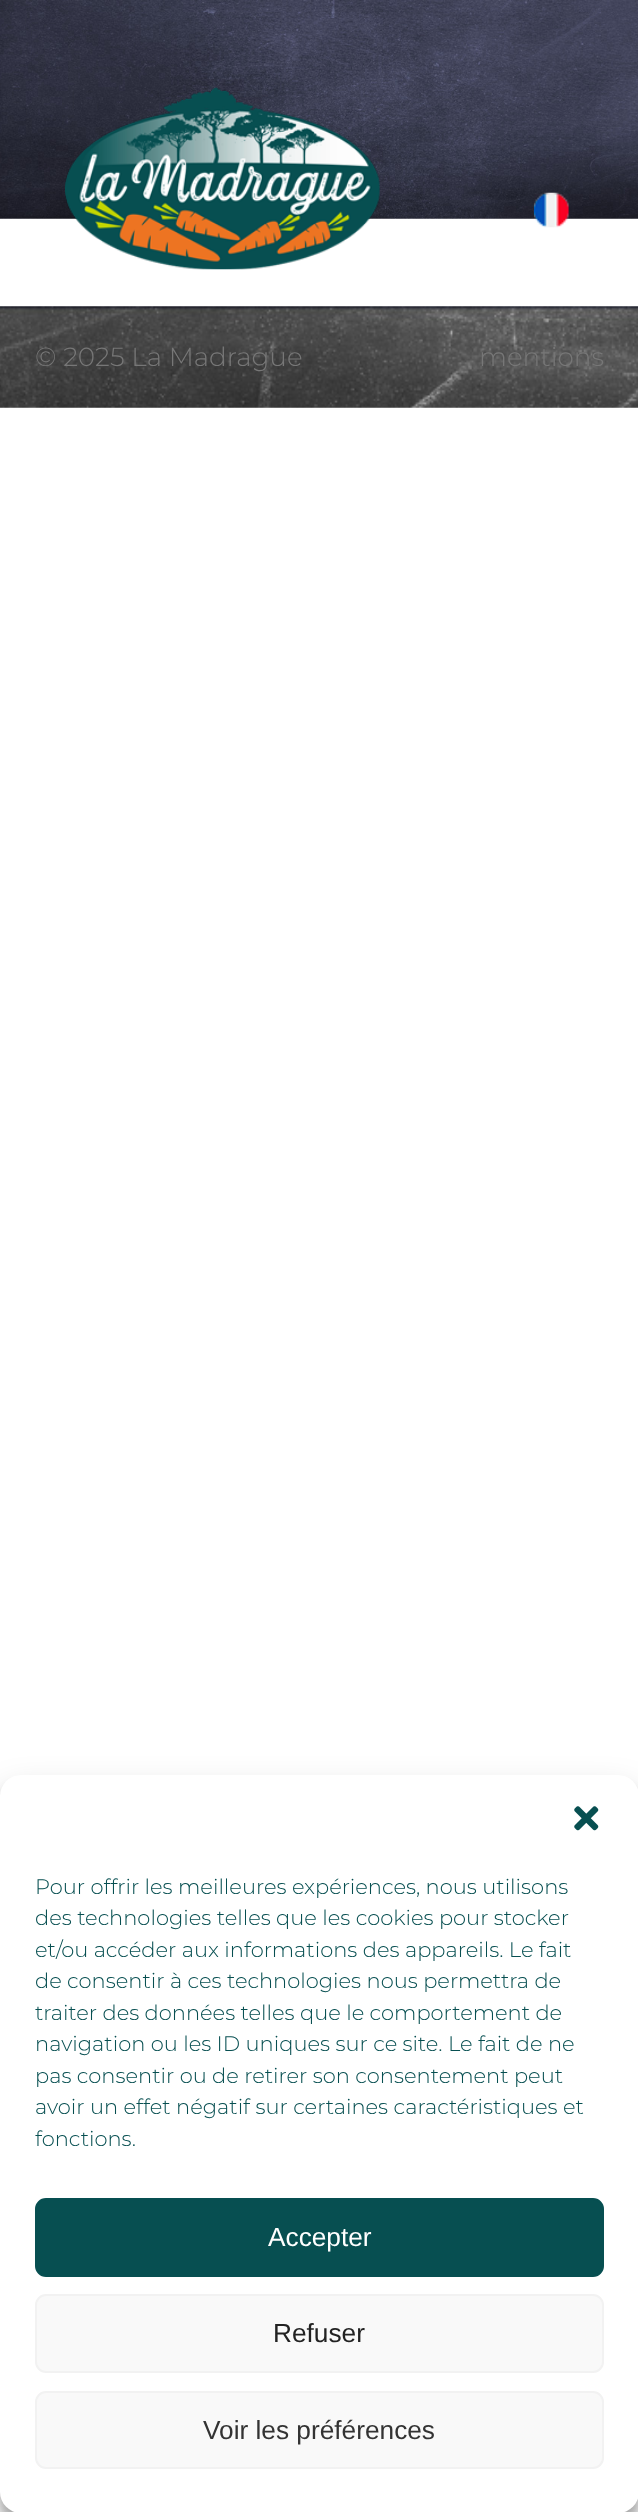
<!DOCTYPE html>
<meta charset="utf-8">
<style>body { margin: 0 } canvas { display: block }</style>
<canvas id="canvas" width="638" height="2512"></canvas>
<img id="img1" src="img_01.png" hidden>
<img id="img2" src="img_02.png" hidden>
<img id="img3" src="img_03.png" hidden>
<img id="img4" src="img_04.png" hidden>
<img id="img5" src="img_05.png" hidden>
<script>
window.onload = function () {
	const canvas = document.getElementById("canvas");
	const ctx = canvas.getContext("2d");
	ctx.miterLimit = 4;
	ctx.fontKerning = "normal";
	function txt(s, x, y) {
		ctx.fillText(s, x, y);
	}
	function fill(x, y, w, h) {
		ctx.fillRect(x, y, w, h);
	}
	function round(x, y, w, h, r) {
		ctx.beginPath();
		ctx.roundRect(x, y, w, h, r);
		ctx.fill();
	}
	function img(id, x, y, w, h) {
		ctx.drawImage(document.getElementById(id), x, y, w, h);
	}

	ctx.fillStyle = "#FFFFFF";
	fill(0, 0, 638, 2512);
	img("img1", 0, 0, 638, 219);
	img("img2", 65, 87, 315, 183);
	img("img3", 533, 192, 36, 36);
	img("img4", 0, 306, 638, 102);
	ctx.fillStyle = "rgba(0, 0, 0, 0.23)";
	ctx.filter = "blur(5px)";
	ctx.beginPath();
	ctx.roundRect(0, 1785, 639, 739, 21);
	ctx.fill();
	ctx.filter = "none";
	ctx.fillStyle = "rgba(0, 0, 0, 0.19)";
	ctx.filter = "blur(17.5px)";
	ctx.beginPath();
	ctx.roundRect(0, 1792, 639, 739, 21);
	ctx.fill();
	ctx.filter = "none";
	ctx.fillStyle = "#FFFFFF";
	round(0, 1775, 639, 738, 21);
	img("img5", 574, 1806, 25, 25);
	ctx.fillStyle = "#074F51";
	ctx.beginPath();
	ctx.roundRect(36, 2199, 567, 77, 10);
	ctx.fill();
	ctx.strokeStyle = "#074F51";
	ctx.lineWidth = 2;
	ctx.stroke();
	ctx.fillStyle = "#F9F9F9";
	ctx.beginPath();
	ctx.roundRect(36, 2295, 567, 77, 10);
	ctx.fill();
	ctx.strokeStyle = "#F2F2F2";
	ctx.stroke();
	ctx.beginPath();
	ctx.roundRect(36, 2392, 567, 76, 10);
	ctx.fill();
	ctx.stroke();
	ctx.font = "300 26.25px Montserrat";
	ctx.fillStyle = "#777777";
	txt("© 2025 La Madrague", 35, 366);
	txt("mentions", 479, 366);
	ctx.font = "300 21px Montserrat";
	ctx.fillStyle = "#074F51";
	txt("Pour offrir les meilleures expériences, nous utilisons", 35, 1894);
	txt("des technologies telles que les cookies pour stocker", 35, 1925);
	txt("et/ou accéder aux informations des appareils. Le fait", 35, 1957);
	txt("de consentir à ces technologies nous permettra de", 35, 1988);
	txt("traiter des données telles que le comportement de", 35, 2020);
	txt("navigation ou les ID uniques sur ce site. Le fait de ne", 35, 2051);
	txt("pas consentir ou de retirer son consentement peut", 35, 2083);
	txt("avoir un effet négatif sur certaines caractéristiques et", 35, 2114);
	txt("fonctions.", 35, 2146);
	ctx.font = "26.25px Liberation Sans";
	ctx.fillStyle = "#FFFFFF";
	txt("Accepter", 268, 2246);
	ctx.fillStyle = "#222222";
	txt("Refuser", 273, 2342);
	ctx.fillStyle = "#333333";
	txt("Voir les préférences", 203, 2439);
};
</script>
